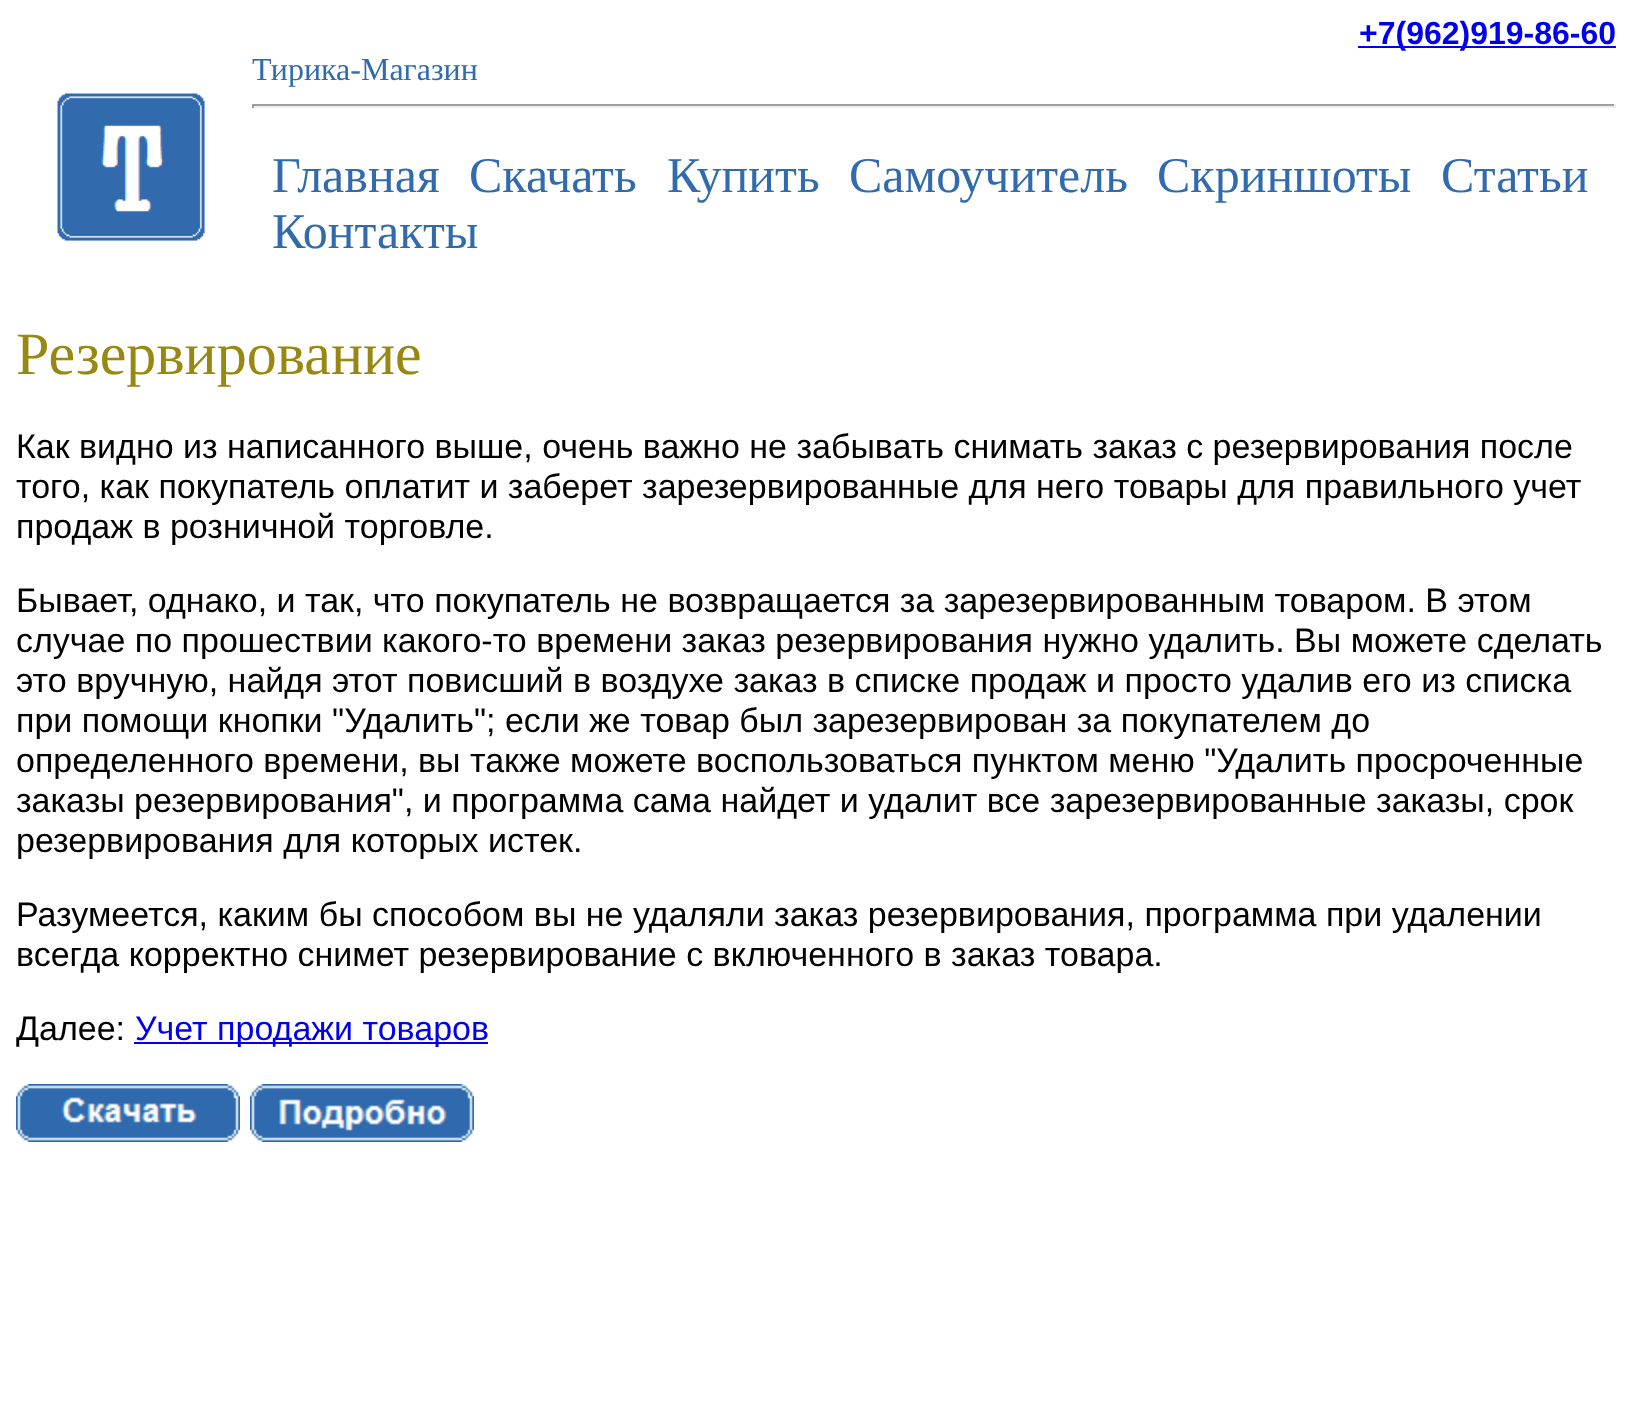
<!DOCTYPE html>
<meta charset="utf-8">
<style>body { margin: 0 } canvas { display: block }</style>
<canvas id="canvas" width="1632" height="1418"></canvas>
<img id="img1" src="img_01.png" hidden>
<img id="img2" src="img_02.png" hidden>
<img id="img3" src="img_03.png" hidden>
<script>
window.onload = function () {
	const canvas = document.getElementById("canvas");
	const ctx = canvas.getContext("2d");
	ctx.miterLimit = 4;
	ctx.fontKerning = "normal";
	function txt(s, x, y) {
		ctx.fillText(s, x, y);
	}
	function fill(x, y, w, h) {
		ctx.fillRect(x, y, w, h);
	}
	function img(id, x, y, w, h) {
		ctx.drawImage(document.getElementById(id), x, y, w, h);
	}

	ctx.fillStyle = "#FFFFFF";
	fill(0, 0, 1632, 1418);
	ctx.fillStyle = "#0000EE";
	fill(1358, 46, 258, 2);
	img("img1", 57, 93, 148, 148);
	ctx.fillStyle = "#9F9F9F";
	fill(252, 104, 1364, 2);
	ctx.fillStyle = "#EEEEEE";
	fill(1614, 104, 2, 4);
	fill(252, 106, 1364, 2);
	ctx.fillStyle = "#9F9F9F";
	fill(252, 104, 2, 4);
	ctx.fillStyle = "#0000EE";
	fill(134, 1042, 354, 2);
	img("img2", 16, 1084, 224, 58);
	img("img3", 250, 1084, 224, 58);
	ctx.font = "bold 32px Liberation Sans";
	txt("+7(962)919-86-60", 1359, 44);
	ctx.font = "32px Liberation Serif";
	ctx.fillStyle = "#316AAD";
	txt("Тирика-Магазин", 252, 80);
	ctx.font = "50px Liberation Serif";
	txt("Главная", 272, 192);
	txt("Скачать", 469, 192);
	txt("Купить", 667, 192);
	txt("Самоучитель", 849, 192);
	txt("Скриншоты", 1157, 192);
	txt("Статьи", 1441, 192);
	txt("Контакты", 272, 248);
	ctx.font = "60px Liberation Serif";
	ctx.fillStyle = "#988710";
	txt("Резервирование", 16, 374);
	ctx.font = "34px Liberation Sans";
	ctx.fillStyle = "#000000";
	txt("Как видно из написанного выше, очень важно не забывать снимать заказ с резервирования после", 16, 458);
	txt("того, как покупатель оплатит и заберет зарезервированные для него товары для правильного учет", 16, 498);
	txt("продаж в розничной торговле.", 16, 538);
	txt("Бывает, однако, и так, что покупатель не возвращается за зарезервированным товаром. В этом", 16, 612);
	txt("случае по прошествии какого-то времени заказ резервирования нужно удалить. Вы можете сделать", 16, 652);
	txt("это вручную, найдя этот повисший в воздухе заказ в списке продаж и просто удалив его из списка", 16, 692);
	txt("при помощи кнопки \"Удалить\"; если же товар был зарезервирован за покупателем до", 16, 732);
	txt("определенного времени, вы также можете воспользоваться пунктом меню \"Удалить просроченные", 16, 772);
	txt("заказы резервирования\", и программа сама найдет и удалит все зарезервированные заказы, срок", 16, 812);
	txt("резервирования для которых истек.", 16, 852);
	txt("Разумеется, каким бы способом вы не удаляли заказ резервирования, программа при удалении", 16, 926);
	txt("всегда корректно снимет резервирование с включенного в заказ товара.", 16, 966);
	txt("Далее:", 16, 1040);
	ctx.fillStyle = "#0000EE";
	txt("Учет продажи товаров", 135, 1040);
};
</script>
